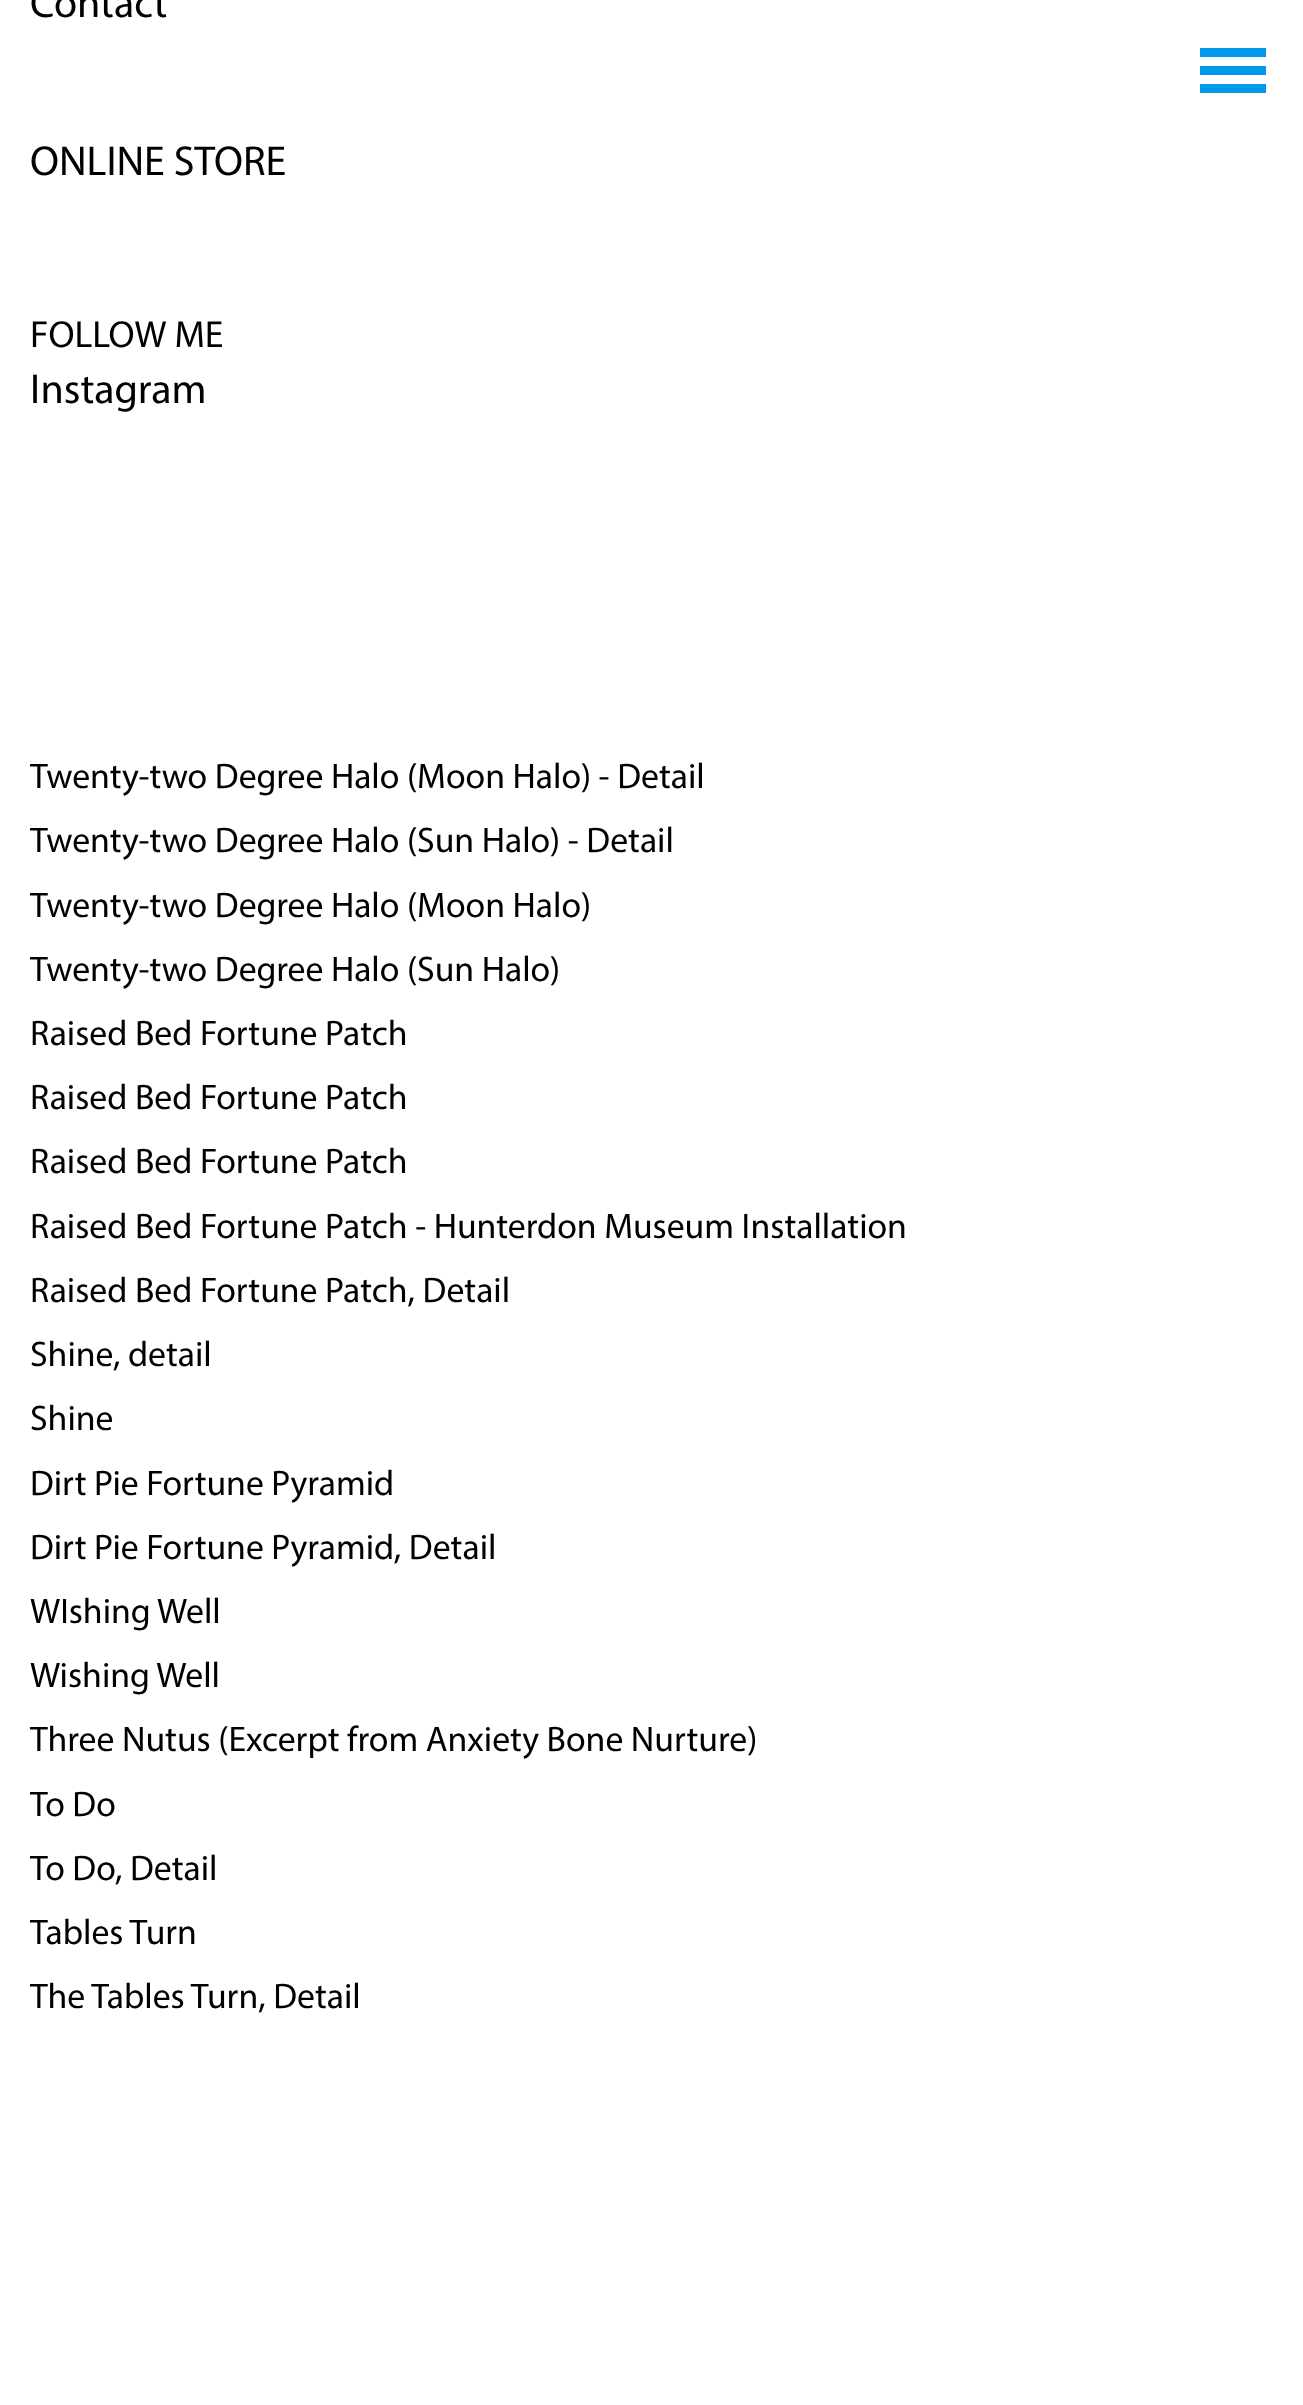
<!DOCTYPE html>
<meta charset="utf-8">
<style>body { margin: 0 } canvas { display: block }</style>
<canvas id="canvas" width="1303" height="2405"></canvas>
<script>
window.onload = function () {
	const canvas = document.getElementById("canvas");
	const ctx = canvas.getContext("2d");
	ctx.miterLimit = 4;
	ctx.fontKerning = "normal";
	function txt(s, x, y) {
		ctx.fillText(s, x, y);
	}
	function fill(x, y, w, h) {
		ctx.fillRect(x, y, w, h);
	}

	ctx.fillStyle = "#FFFFFF";
	fill(0, 0, 1303, 2405);
	ctx.fillStyle = "#0099EA";
	fill(1200, 48, 66, 9);
	fill(1200, 66, 66, 9);
	fill(1200, 84, 66, 9);
	ctx.font = "42px Myriad";
	ctx.fillStyle = "#000000";
	txt("Contact", 30, 17);
	txt("ONLINE STORE", 30, 175);
	ctx.font = "37.75px Myriad";
	txt("FOLLOW ME", 30, 347);
	ctx.font = "42px Myriad";
	txt("Instagram", 30, 403);
	ctx.font = "35.7px Myriad";
	txt("Twenty-two Degree Halo (Moon Halo) - Detail", 30, 788);
	txt("Twenty-two Degree Halo (Sun Halo) - Detail", 30, 852);
	txt("Twenty-two Degree Halo (Moon Halo)", 30, 917);
	txt("Twenty-two Degree Halo (Sun Halo)", 30, 981);
	txt("Raised Bed Fortune Patch", 30, 1045);
	txt("Raised Bed Fortune Patch", 30, 1109);
	txt("Raised Bed Fortune Patch", 30, 1173);
	txt("Raised Bed Fortune Patch - Hunterdon Museum Installation", 30, 1238);
	txt("Raised Bed Fortune Patch, Detail", 30, 1302);
	txt("Shine, detail", 30, 1366);
	txt("Shine", 30, 1430);
	txt("Dirt Pie Fortune Pyramid", 30, 1495);
	txt("Dirt Pie Fortune Pyramid, Detail", 30, 1559);
	txt("WIshing Well", 30, 1623);
	txt("Wishing Well", 30, 1687);
	txt("Three Nutus (Excerpt from Anxiety Bone Nurture)", 30, 1751);
	txt("To Do", 30, 1816);
	txt("To Do, Detail", 30, 1880);
	txt("Tables Turn", 30, 1944);
	txt("The Tables Turn, Detail", 30, 2008);
};
</script>
